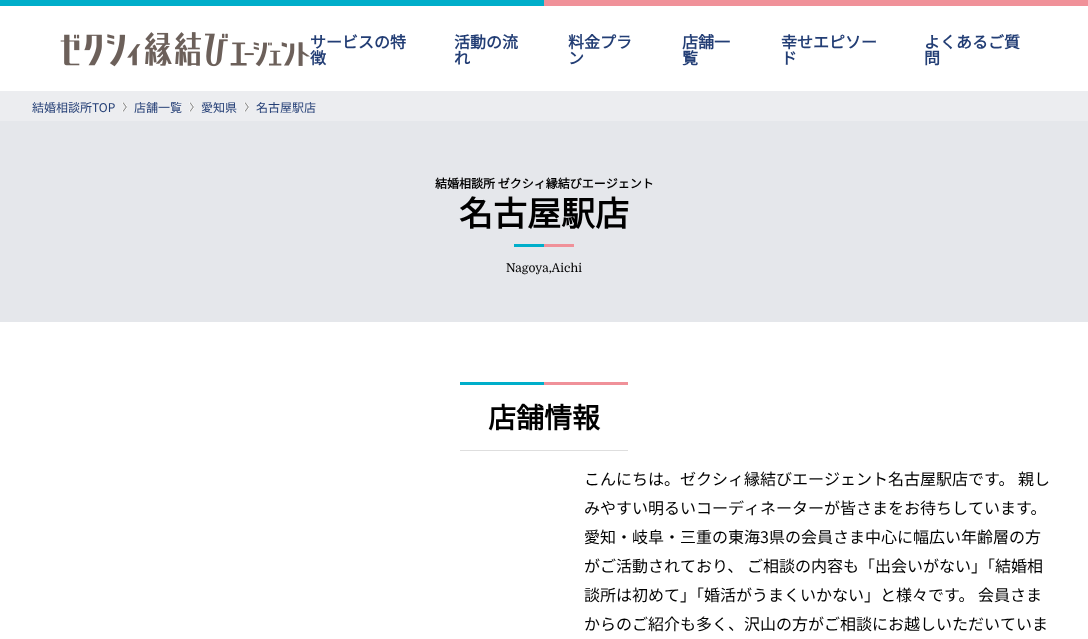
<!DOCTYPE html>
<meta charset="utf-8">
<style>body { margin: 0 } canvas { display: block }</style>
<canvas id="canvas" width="1088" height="639"></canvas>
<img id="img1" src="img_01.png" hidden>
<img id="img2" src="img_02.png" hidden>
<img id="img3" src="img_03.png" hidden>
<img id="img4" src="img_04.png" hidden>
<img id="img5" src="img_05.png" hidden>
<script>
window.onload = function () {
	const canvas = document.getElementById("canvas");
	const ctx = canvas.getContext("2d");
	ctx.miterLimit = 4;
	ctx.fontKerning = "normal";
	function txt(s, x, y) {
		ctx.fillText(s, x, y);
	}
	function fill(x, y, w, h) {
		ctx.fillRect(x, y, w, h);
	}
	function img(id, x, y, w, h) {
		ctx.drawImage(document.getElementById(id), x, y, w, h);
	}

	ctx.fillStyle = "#FFFFFF";
	fill(0, 0, 1088, 639);
	img("img1", 0, 0, 1088, 6);
	img("img2", 60, 32, 250, 35);
	ctx.fillStyle = "#ECEDF0";
	fill(0, 91, 1088, 30);
	img("img3", 122, 102, 5, 10);
	img("img3", 189, 102, 5, 10);
	img("img3", 244, 102, 5, 10);
	ctx.fillStyle = "#E5E7EB";
	fill(0, 121, 1088, 201);
	img("img4", 514, 244, 60, 3);
	img("img5", 460, 382, 168, 3);
	ctx.fillStyle = "#DEDEDE";
	fill(460, 450, 168, 1);
	ctx.font = "bold 16px Noto Sans JP";
	ctx.fillStyle = "#233E75";
	txt("サービスの特", 310, 48);
	txt("徴", 310, 64);
	txt("活動の流", 454, 48);
	txt("れ", 454, 64);
	txt("料金プラ", 568, 48);
	txt("ン", 568, 64);
	txt("店舗一", 682, 48);
	txt("覧", 682, 64);
	txt("幸せエピソー", 781, 48);
	txt("ド", 781, 64);
	txt("よくあるご質", 924, 48);
	txt("問", 924, 64);
	ctx.font = "100 12px Noto Sans JP";
	txt("結婚相談所TOP", 32, 112);
	txt("店舗一覧", 134, 112);
	txt("愛知県", 201, 112);
	txt("名古屋駅店", 256, 112);
	ctx.font = "bold 12px Noto Sans JP";
	ctx.fillStyle = "#000000";
	txt("結婚相談所 ゼクシィ縁結びエージェント", 435, 188);
	ctx.font = "bold 34px Noto Sans JP";
	txt("名古屋駅店", 459, 226);
	ctx.font = "12px Domine";
	txt("Nagoya,Aichi", 506, 272);
	ctx.font = "bold 28px Noto Sans JP";
	txt("店舗情報", 488, 428);
	ctx.font = "100 16px Noto Sans JP";
	txt("こんにちは。ゼクシィ縁結びエージェント名古屋駅店です。 親し", 584, 485);
	txt("みやすい明るいコーディネーターが皆さまをお待ちしています。", 584, 514);
	txt("愛知・岐阜・三重の東海3県の会員さま中心に幅広い年齢層の方", 584, 543);
	txt("がご活動されており、 ご相談の内容も「出会いがない」「結婚相", 584, 572);
	txt("談所は初めて」「婚活がうまくいかない」と様々です。 会員さま", 584, 601);
	txt("からのご紹介も多く、沢山の方がご相談にお越しいただいていま", 584, 630);
};
</script>
